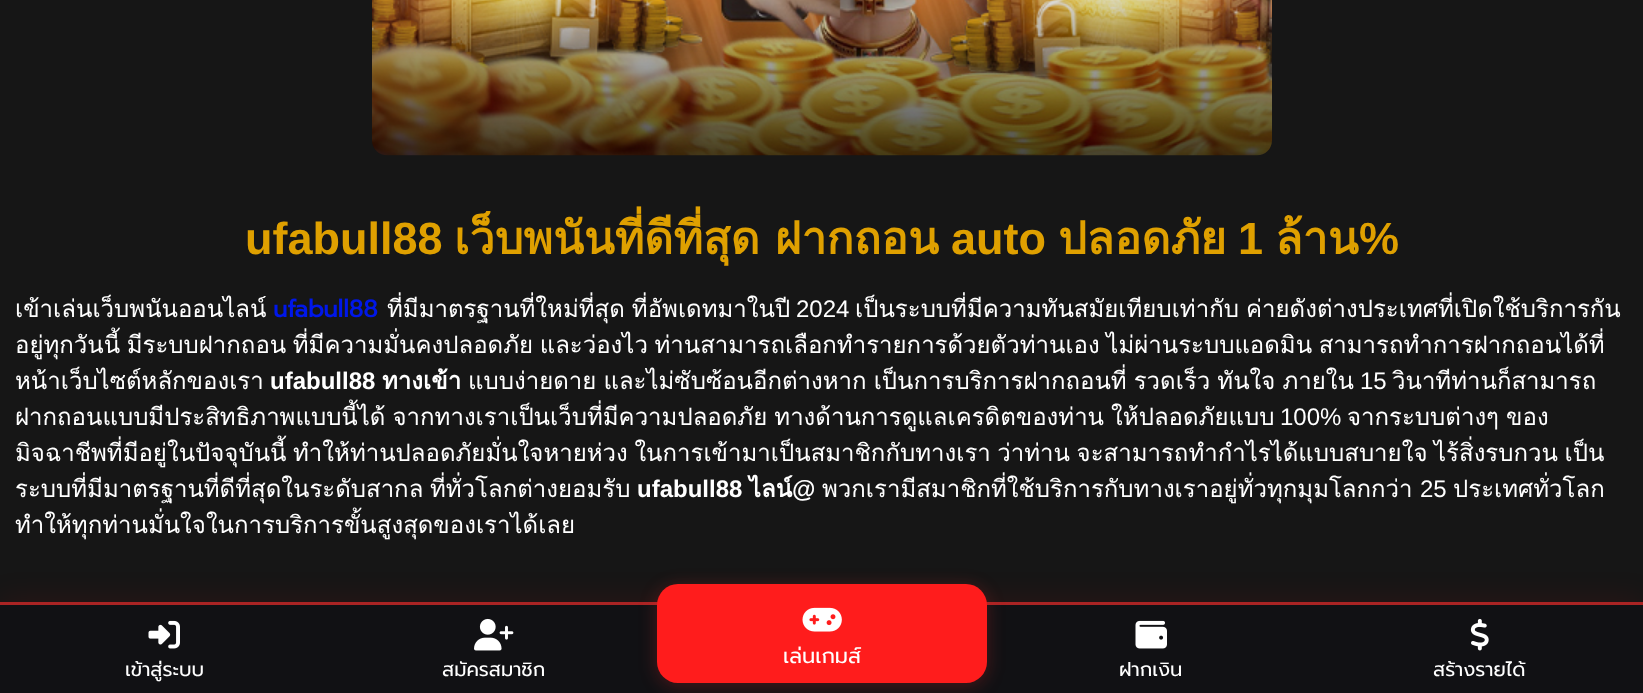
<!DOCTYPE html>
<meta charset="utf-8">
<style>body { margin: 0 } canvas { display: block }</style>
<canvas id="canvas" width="1643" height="693"></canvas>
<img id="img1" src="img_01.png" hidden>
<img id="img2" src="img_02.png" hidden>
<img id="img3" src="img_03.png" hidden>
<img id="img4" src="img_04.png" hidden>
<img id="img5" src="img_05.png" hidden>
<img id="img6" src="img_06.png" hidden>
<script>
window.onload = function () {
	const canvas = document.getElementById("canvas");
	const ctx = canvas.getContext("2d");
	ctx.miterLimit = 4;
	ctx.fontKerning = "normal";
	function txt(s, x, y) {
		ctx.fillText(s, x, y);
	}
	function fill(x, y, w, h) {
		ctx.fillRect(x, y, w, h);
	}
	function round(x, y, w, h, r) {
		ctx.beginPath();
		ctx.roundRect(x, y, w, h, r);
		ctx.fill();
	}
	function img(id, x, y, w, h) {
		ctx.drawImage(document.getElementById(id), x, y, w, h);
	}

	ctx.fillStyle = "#161616";
	fill(0, 0, 1643, 693);
	img("img1", 372, 0, 900, 156);
	ctx.fillStyle = "rgba(255, 0, 0, 0.08)";
	ctx.filter = "blur(15px)";
	ctx.beginPath();
	ctx.rect(0, 599, 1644, 91);
	ctx.fill();
	ctx.filter = "none";
	ctx.fillStyle = "#111114";
	fill(0, 605, 1643, 88);
	ctx.fillStyle = "#AA2424";
	fill(0, 602, 1643, 3);
	ctx.fillStyle = "rgba(255, 44, 44, 0.24)";
	ctx.filter = "blur(9px)";
	ctx.beginPath();
	ctx.roundRect(657, 587, 330, 99, 21);
	ctx.fill();
	ctx.filter = "none";
	ctx.fillStyle = "#FF1C1C";
	round(657, 584, 330, 99, 21);
	img("img2", 802, 607, 40, 25);
	img("img3", 148, 620, 32, 29);
	img("img4", 474, 618, 40, 33);
	img("img5", 1135, 620, 32, 29);
	img("img6", 1470, 618, 19, 33);
	ctx.font = "bold 45px Liberation Sans";
	ctx.fillStyle = "#DFA000";
	txt("ufabull88", 245, 254);
	ctx.font = "bold 45px Loma";
	txt("เว็บพนันที่ดีที่สุด ฝากถอน", 454, 254);
	ctx.font = "bold 45px Liberation Sans";
	txt("auto", 951, 254);
	ctx.font = "bold 45px Loma";
	txt("ปลอดภัย", 1058, 254);
	ctx.font = "bold 45px Liberation Sans";
	txt("1", 1238, 254);
	ctx.font = "bold 45px Loma";
	txt("ล้าน", 1275, 254);
	ctx.font = "bold 45px Liberation Sans";
	txt("%", 1359, 254);
	ctx.font = "24px Loma";
	ctx.fillStyle = "#FFFFFF";
	txt("เข้าเล่นเว็บพนันออนไลน์", 15, 317);
	ctx.font = "bold 24px Prompt";
	ctx.fillStyle = "#0017E9";
	txt("ufabull88", 273, 317);
	ctx.wordSpacing = "-1px";
	ctx.font = "24px Loma";
	ctx.fillStyle = "#FFFFFF";
	txt("ที่มีมาตรฐานที่ใหม่ที่สุด ที่อัพเดทมาในปี", 387, 317);
	ctx.wordSpacing = "0px";
	ctx.font = "24px Liberation Sans";
	txt("2024", 796, 317);
	ctx.wordSpacing = "-1px";
	ctx.font = "24px Loma";
	txt("เป็นระบบที่มีความทันสมัยเทียบเท่ากับ ค่ายดังต่างประเทศที่เปิดใช้บริการกัน", 855, 317);
	ctx.wordSpacing = "-1.5px";
	txt("อยู่ทุกวันนี้ มีระบบฝากถอน ที่มีความมั่นคงปลอดภัย และว่องไว ท่านสามารถเลือกทำรายการด้วยตัวท่านเอง ไม่ผ่านระบบแอดมิน สามารถทำการฝากถอนได้ที่", 15, 353);
	ctx.wordSpacing = "0px";
	txt("หน้าเว็บไซต์หลักของเรา", 15, 389);
	ctx.font = "bold 24px Liberation Sans";
	txt("ufabull88", 270, 389);
	ctx.font = "bold 24px Loma";
	txt("ทางเข้า", 382, 389);
	ctx.wordSpacing = "-1px";
	ctx.font = "24px Loma";
	txt("แบบง่ายดาย และไม่ซับซ้อนอีกต่างหาก เป็นการบริการฝากถอนที่ รวดเร็ว ทันใจ ภายใน", 468, 389);
	ctx.wordSpacing = "0px";
	ctx.font = "24px Liberation Sans";
	txt("15", 1360, 389);
	ctx.font = "24px Loma";
	txt("วินาทีท่านก็สามารถ", 1392, 389);
	ctx.wordSpacing = "-1px";
	txt("ฝากถอนแบบมีประสิทธิภาพแบบนี้ได้ จากทางเราเป็นเว็บที่มีความปลอดภัย ทางด้านการดูแลเครดิตของท่าน ให้ปลอดภัยแบบ", 15, 425);
	ctx.wordSpacing = "0px";
	ctx.font = "24px Liberation Sans";
	txt("100%", 1280, 425);
	ctx.wordSpacing = "-1px";
	ctx.font = "24px Loma";
	txt("จากระบบต่างๆ ของ", 1347, 425);
	ctx.wordSpacing = "-1.5px";
	txt("มิจฉาชีพที่มีอยู่ในปัจจุบันนี้ ทำให้ท่านปลอดภัยมั่นใจหายห่วง ในการเข้ามาเป็นสมาชิกกับทางเรา ว่าท่าน จะสามารถทำกำไรได้แบบสบายใจ ไร้สิ่งรบกวน เป็น", 15, 461);
	txt("ระบบที่มีมาตรฐานที่ดีที่สุดในระดับสากล ที่ทั่วโลกต่างยอมรับ", 15, 497);
	ctx.wordSpacing = "0px";
	ctx.font = "bold 24px Liberation Sans";
	txt("ufabull88", 637, 497);
	ctx.font = "bold 24px Loma";
	txt("ไลน์", 749, 497);
	ctx.font = "bold 24px Liberation Sans";
	txt("@", 792, 497);
	ctx.font = "24px Loma";
	txt("พวกเรามีสมาชิกที่ใช้บริการกับทางเราอยู่ทั่วทุกมุมโลกกว่า", 822, 497);
	ctx.font = "24px Liberation Sans";
	txt("25", 1420, 497);
	ctx.font = "24px Loma";
	txt("ประเทศทั่วโลก", 1453, 497);
	txt("ทำให้ทุกท่านมั่นใจในการบริการขั้นสูงสุดของเราได้เลย", 15, 533);
	ctx.font = "21px Prompt";
	txt("เล่นเกมส์", 783, 663);
	ctx.font = "19.5px Prompt";
	txt("เข้าสู่ระบบ", 125, 676);
	txt("สมัครสมาชิก", 442, 676);
	txt("ฝากเงิน", 1119, 676);
	txt("สร้างรายได้", 1433, 676);
};
</script>
